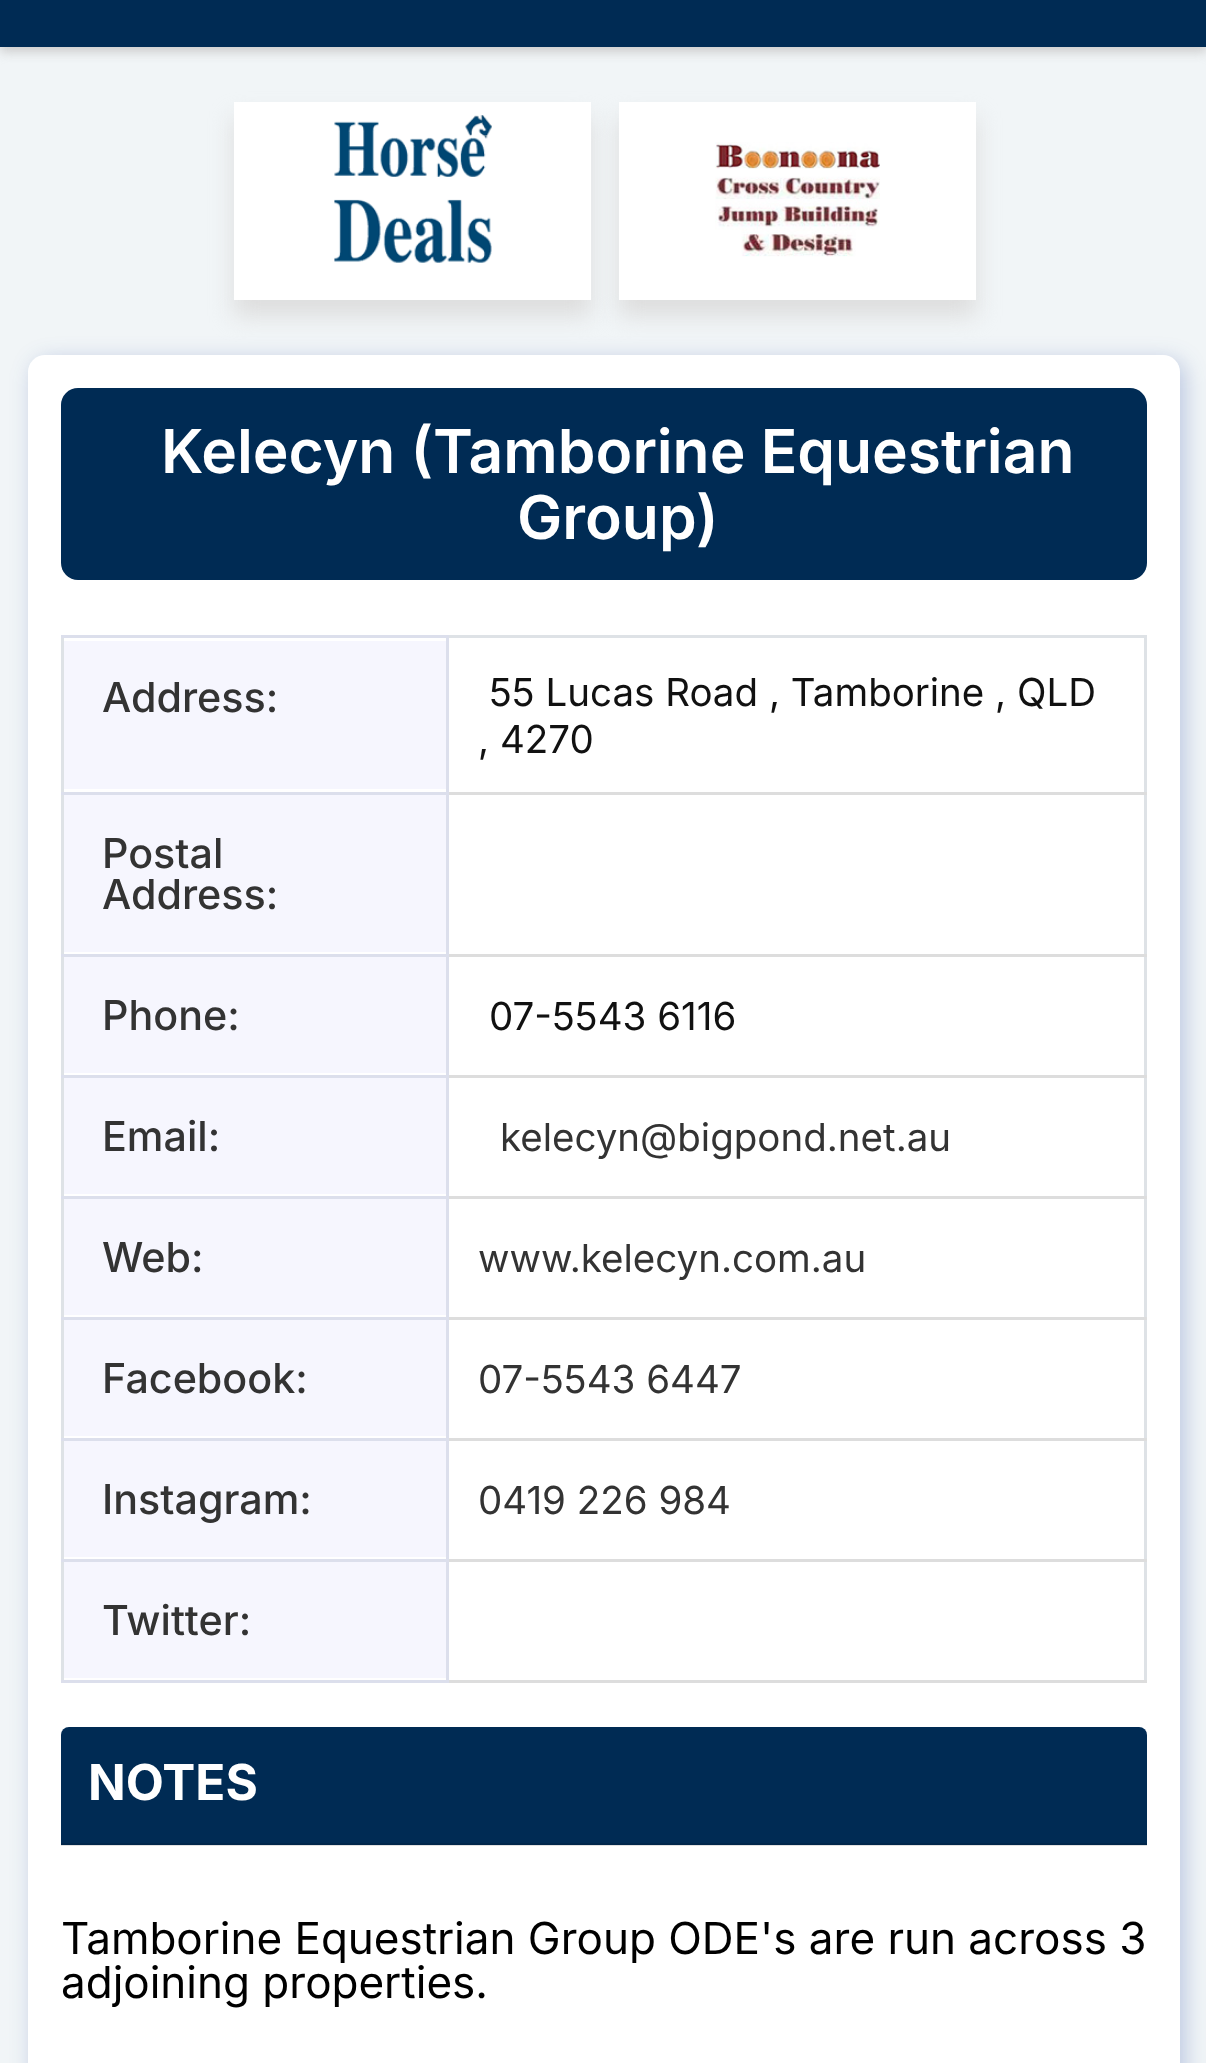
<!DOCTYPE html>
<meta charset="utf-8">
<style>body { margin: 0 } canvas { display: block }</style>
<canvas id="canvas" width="1206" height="2063"></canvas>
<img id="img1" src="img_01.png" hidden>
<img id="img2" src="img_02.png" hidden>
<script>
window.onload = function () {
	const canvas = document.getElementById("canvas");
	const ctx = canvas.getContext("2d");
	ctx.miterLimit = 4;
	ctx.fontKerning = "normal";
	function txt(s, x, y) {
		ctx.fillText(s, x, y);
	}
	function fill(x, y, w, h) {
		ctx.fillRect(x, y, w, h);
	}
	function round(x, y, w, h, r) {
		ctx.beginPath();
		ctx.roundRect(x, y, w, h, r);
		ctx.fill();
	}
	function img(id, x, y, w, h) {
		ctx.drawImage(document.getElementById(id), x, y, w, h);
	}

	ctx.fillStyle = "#F1F5F7";
	fill(0, 0, 1206, 2063);
	ctx.fillStyle = "#CCCCCC";
	ctx.filter = "blur(5.5px)";
	ctx.beginPath();
	ctx.rect(0, -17, 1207, 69);
	ctx.fill();
	ctx.filter = "none";
	ctx.fillStyle = "#002B54";
	fill(0, 0, 1206, 47);
	ctx.fillStyle = "#DDDDDD";
	ctx.filter = "blur(11px)";
	ctx.beginPath();
	ctx.rect(234, 118, 357, 198);
	ctx.fill();
	ctx.filter = "none";
	ctx.fillStyle = "#FFFFFF";
	fill(234, 102, 357, 198);
	img("img1", 334, 115, 158, 148);
	ctx.fillStyle = "#DDDDDD";
	ctx.filter = "blur(11px)";
	ctx.beginPath();
	ctx.rect(619, 118, 357, 198);
	ctx.fill();
	ctx.filter = "none";
	ctx.fillStyle = "#FFFFFF";
	fill(619, 102, 357, 198);
	img("img2", 715, 142, 165, 115);
	ctx.fillStyle = "rgba(29, 63, 158, 0.25)";
	ctx.filter = "blur(11px)";
	ctx.beginPath();
	ctx.roundRect(33, 360, 1152, 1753, 17);
	ctx.fill();
	ctx.filter = "none";
	ctx.fillStyle = "#FFFFFF";
	round(28, 355, 1152, 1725, 17);
	ctx.fillStyle = "#E0E0E0";
	fill(61, 1845, 1086, 1);
	ctx.fillStyle = "#002B54";
	round(61, 388, 1086, 192, 17);
	ctx.fillStyle = "#DEE2E6";
	fill(449, 635, 698, 3);
	fill(1144, 635, 3, 1048);
	fill(61, 635, 3, 1048);
	ctx.fillStyle = "#F6F6FE";
	fill(64, 641, 382, 148);
	ctx.fillStyle = "#DCDFEC";
	fill(61, 635, 387, 3);
	fill(61, 792, 387, 3);
	fill(61, 954, 387, 3);
	fill(61, 1075, 387, 3);
	fill(61, 1196, 387, 3);
	fill(61, 1317, 387, 3);
	fill(61, 1438, 387, 3);
	fill(61, 1559, 387, 3);
	ctx.fillStyle = "#DDDDDD";
	fill(446, 1680, 701, 3);
	ctx.fillStyle = "#DCDFEC";
	fill(446, 1559, 3, 124);
	ctx.fillStyle = "#DDDDDD";
	fill(446, 1559, 701, 3);
	ctx.fillStyle = "#DCDFEC";
	fill(446, 1438, 3, 124);
	ctx.fillStyle = "#DDDDDD";
	fill(446, 1438, 701, 3);
	ctx.fillStyle = "#DCDFEC";
	fill(446, 1317, 3, 124);
	ctx.fillStyle = "#DDDDDD";
	fill(446, 1317, 701, 3);
	ctx.fillStyle = "#DCDFEC";
	fill(446, 1196, 3, 124);
	ctx.fillStyle = "#DDDDDD";
	fill(446, 1196, 701, 3);
	ctx.fillStyle = "#DCDFEC";
	fill(446, 1075, 3, 124);
	ctx.fillStyle = "#DDDDDD";
	fill(446, 1075, 701, 3);
	ctx.fillStyle = "#DCDFEC";
	fill(446, 954, 3, 124);
	ctx.fillStyle = "#DDDDDD";
	fill(446, 954, 701, 3);
	ctx.fillStyle = "#DCDFEC";
	fill(446, 792, 3, 165);
	ctx.fillStyle = "#DDDDDD";
	fill(446, 792, 701, 3);
	ctx.fillStyle = "#DCDFEC";
	fill(446, 635, 3, 160);
	ctx.fillStyle = "#F6F6FE";
	fill(64, 795, 382, 157);
	fill(64, 957, 382, 116);
	fill(64, 1078, 382, 116);
	fill(64, 1199, 382, 116);
	fill(64, 1320, 382, 116);
	fill(64, 1441, 382, 116);
	fill(64, 1562, 382, 116);
	ctx.fillStyle = "#DCDFEC";
	fill(61, 1680, 387, 3);
	ctx.fillStyle = "#002B54";
	ctx.beginPath();
	ctx.roundRect(61, 1727, 1086, 118, [8, 8, 0, 0]);
	ctx.fill();
	ctx.fillStyle = "#00264A";
	fill(61, 1843, 1086, 2);
	ctx.font = "600 60.5px Inter";
	ctx.fillStyle = "#FFFFFF";
	txt("Kelecyn (Tamborine Equestrian", 161, 473);
	txt("Group)", 517, 539);
	ctx.font = "500 41.25px Inter";
	ctx.fillStyle = "#333333";
	txt("Address:", 102, 712);
	ctx.font = "38.5px Inter";
	ctx.fillStyle = "#111111";
	txt("55 Lucas Road , Tamborine , QLD", 489, 706);
	txt(", 4270", 478, 753);
	ctx.font = "500 41.25px Inter";
	ctx.fillStyle = "#333333";
	txt("Postal", 102, 868);
	txt("Address:", 102, 909);
	txt("Phone:", 102, 1030);
	ctx.font = "38.5px Inter";
	ctx.fillStyle = "#111111";
	txt("07-5543 6116", 489, 1030);
	ctx.font = "500 41.25px Inter";
	ctx.fillStyle = "#333333";
	txt("Email:", 102, 1151);
	ctx.font = "38.5px Inter";
	txt("kelecyn@bigpond.net.au", 500, 1151);
	ctx.font = "500 41.25px Inter";
	txt("Web:", 102, 1272);
	ctx.font = "38.5px Inter";
	txt("www.kelecyn.com.au", 478, 1272);
	ctx.font = "500 41.25px Inter";
	txt("Facebook:", 102, 1393);
	ctx.font = "38.5px Inter";
	txt("07-5543 6447", 478, 1393);
	ctx.font = "500 41.25px Inter";
	txt("Instagram:", 102, 1514);
	ctx.font = "38.5px Inter";
	txt("0419 226 984", 478, 1514);
	ctx.font = "500 41.25px Inter";
	txt("Twitter:", 102, 1635);
	ctx.font = "bold 49.5px Inter";
	ctx.fillStyle = "#FFFFFF";
	txt("NOTES", 88, 1800);
	ctx.font = "44px Inter";
	ctx.fillStyle = "#000000";
	txt("Tamborine Equestrian Group ODE's are run across 3", 61, 1954);
	txt("adjoining properties.", 61, 1998);
};
</script>
